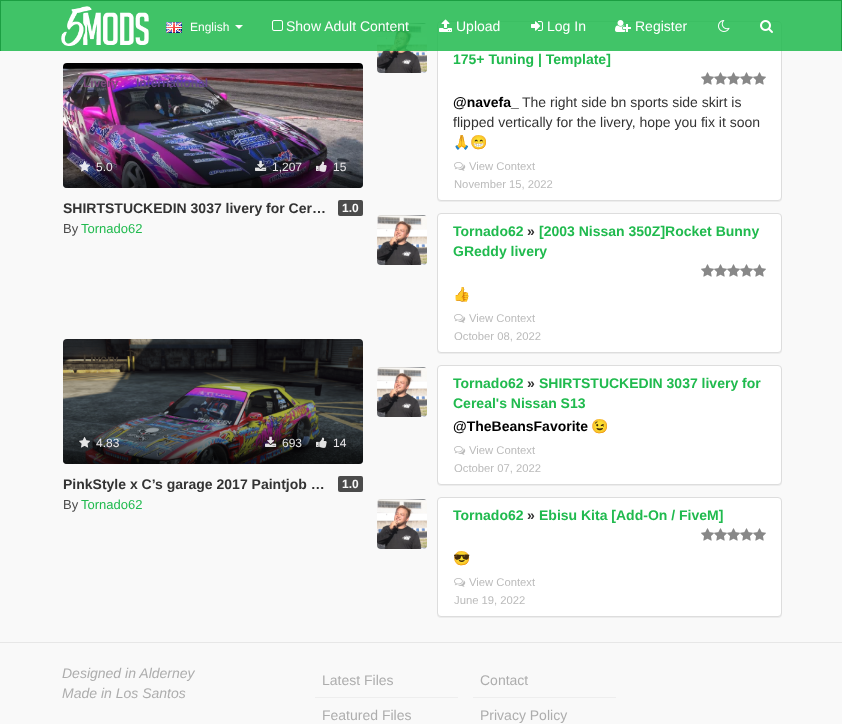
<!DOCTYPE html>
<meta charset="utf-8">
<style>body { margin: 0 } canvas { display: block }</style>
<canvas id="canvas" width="842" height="724"></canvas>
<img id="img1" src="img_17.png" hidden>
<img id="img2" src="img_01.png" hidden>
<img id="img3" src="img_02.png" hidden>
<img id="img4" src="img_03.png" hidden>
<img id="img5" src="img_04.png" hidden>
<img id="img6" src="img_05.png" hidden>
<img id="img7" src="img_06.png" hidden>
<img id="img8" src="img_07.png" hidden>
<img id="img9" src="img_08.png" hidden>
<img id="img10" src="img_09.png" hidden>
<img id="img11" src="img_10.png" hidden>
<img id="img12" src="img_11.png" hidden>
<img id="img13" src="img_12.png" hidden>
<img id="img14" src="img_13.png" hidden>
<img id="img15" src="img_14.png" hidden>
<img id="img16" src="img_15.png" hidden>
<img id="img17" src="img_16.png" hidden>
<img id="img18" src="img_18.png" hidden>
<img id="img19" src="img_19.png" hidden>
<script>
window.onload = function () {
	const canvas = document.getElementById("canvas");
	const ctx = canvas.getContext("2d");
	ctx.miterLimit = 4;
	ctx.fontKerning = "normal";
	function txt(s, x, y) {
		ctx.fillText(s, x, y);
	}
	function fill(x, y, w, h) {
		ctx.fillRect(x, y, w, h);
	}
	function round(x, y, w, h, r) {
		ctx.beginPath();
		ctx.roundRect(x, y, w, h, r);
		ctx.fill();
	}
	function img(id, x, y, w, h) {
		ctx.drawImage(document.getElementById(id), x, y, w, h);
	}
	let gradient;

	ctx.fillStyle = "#F9F9F9";
	fill(0, 0, 842, 724);
	img("img1", 377, 23, 50, 50);
	ctx.fillStyle = "rgba(0, 0, 0, 0.05)";
	ctx.filter = "blur(0.5px)";
	ctx.beginPath();
	ctx.roundRect(437, 22, 345, 180, 4);
	ctx.fill();
	ctx.filter = "none";
	ctx.fillStyle = "#FFFFFF";
	ctx.beginPath();
	ctx.roundRect(437.5, 21.5, 344, 179, 3.5);
	ctx.fill();
	ctx.strokeStyle = "#DDDDDD";
	ctx.stroke();
	ctx.fillStyle = "rgba(32, 186, 78, 0.85)";
	fill(1, 1, 840, 50);
	ctx.fillStyle = "#1B9E42";
	fill(0, 0, 842, 1);
	fill(841, 0, 1, 51);
	fill(0, 0, 1, 51);
	img("img2", 61, 6, 88, 40);
	img("img3", 166, 22, 16, 11);
	ctx.fillStyle = "#FFFFFF";
	ctx.beginPath();
	ctx.moveTo(235, 25);
	ctx.lineTo(243, 25);
	ctx.lineTo(239, 29);
	ctx.closePath();
	ctx.fill();
	img("img4", 272, 20, 11, 11);
	img("img5", 439, 19, 13, 13);
	img("img6", 531, 21, 12, 10);
	img("img7", 615, 20, 16, 12);
	img("img8", 718, 20, 12, 12);
	img("img9", 760, 20, 13, 13);
	img("img10", 63, 63, 300, 125);
	gradient = ctx.createLinearGradient(213, 63, 213, 188);
	gradient.addColorStop(0.5, "rgba(0, 0, 0, 0)");
	gradient.addColorStop(0.75, "rgba(0, 0, 0, 0.25)");
	gradient.addColorStop(1, "rgba(0, 0, 0, 0.75)");
	ctx.fillStyle = gradient;
	round(63, 63, 300, 125, 4);
	img("img11", 79, 161, 11, 11);
	img("img12", 255, 160, 12, 11);
	img("img13", 316, 161, 11, 11);
	ctx.fillStyle = "#4B4B4B";
	round(338, 200, 25, 16, 2);
	img("img14", 63, 339, 300, 125);
	gradient = ctx.createLinearGradient(213, 339, 213, 464);
	gradient.addColorStop(0.5, "rgba(0, 0, 0, 0)");
	gradient.addColorStop(0.75, "rgba(0, 0, 0, 0.25)");
	gradient.addColorStop(1, "rgba(0, 0, 0, 0.75)");
	ctx.fillStyle = gradient;
	round(63, 339, 300, 125, 4);
	img("img15", 79, 437, 11, 11);
	img("img16", 265, 436, 12, 11);
	img("img17", 316, 437, 11, 11);
	ctx.fillStyle = "#4B4B4B";
	round(338, 476, 25, 16, 2);
	img("img18", 701, 72, 13, 13);
	img("img18", 714, 72, 13, 13);
	img("img18", 727, 72, 13, 13);
	img("img18", 740, 72, 13, 13);
	img("img18", 753, 72, 13, 13);
	img("img19", 454, 162, 12, 9);
	img("img1", 377, 215, 50, 50);
	ctx.fillStyle = "rgba(0, 0, 0, 0.05)";
	ctx.filter = "blur(0.5px)";
	ctx.beginPath();
	ctx.roundRect(437, 214, 345, 140, 4);
	ctx.fill();
	ctx.filter = "none";
	ctx.fillStyle = "#FFFFFF";
	ctx.beginPath();
	ctx.roundRect(437.5, 213.5, 344, 139, 3.5);
	ctx.fill();
	ctx.stroke();
	img("img18", 701, 264, 13, 13);
	img("img18", 714, 264, 13, 13);
	img("img18", 727, 264, 13, 13);
	img("img18", 740, 264, 13, 13);
	img("img18", 753, 264, 13, 13);
	img("img19", 454, 314, 12, 9);
	img("img1", 377, 367, 50, 50);
	ctx.fillStyle = "rgba(0, 0, 0, 0.05)";
	ctx.filter = "blur(0.5px)";
	ctx.beginPath();
	ctx.roundRect(437, 366, 345, 120, 4);
	ctx.fill();
	ctx.filter = "none";
	ctx.fillStyle = "#FFFFFF";
	ctx.beginPath();
	ctx.roundRect(437.5, 365.5, 344, 119, 3.5);
	ctx.fill();
	ctx.stroke();
	img("img19", 454, 446, 12, 9);
	img("img1", 377, 499, 50, 50);
	ctx.fillStyle = "rgba(0, 0, 0, 0.05)";
	ctx.filter = "blur(0.5px)";
	ctx.beginPath();
	ctx.roundRect(437, 498, 345, 120, 4);
	ctx.fill();
	ctx.filter = "none";
	ctx.fillStyle = "#FFFFFF";
	ctx.beginPath();
	ctx.roundRect(437.5, 497.5, 344, 119, 3.5);
	ctx.fill();
	ctx.stroke();
	img("img18", 701, 528, 13, 13);
	img("img18", 714, 528, 13, 13);
	img("img18", 727, 528, 13, 13);
	img("img18", 740, 528, 13, 13);
	img("img18", 753, 528, 13, 13);
	img("img19", 454, 578, 12, 9);
	ctx.fillStyle = "#E7E7E7";
	fill(0, 642, 842, 1);
	ctx.fillStyle = "#EEEEEE";
	fill(315, 697, 143, 1);
	fill(473, 697, 143, 1);
	ctx.font = "12px Liberation Sans";
	ctx.fillStyle = "#FFFFFF";
	txt("English", 190, 31);
	ctx.font = "14px Liberation Sans";
	txt("Show Adult Content", 286, 31);
	txt("Upload", 456, 31);
	txt("Log In", 547, 31);
	txt("Register", 635, 31);
	ctx.font = "bold 12px Liberation Sans";
	ctx.fillStyle = "#784A7A";
	txt("Livery", 83, 87);
	ctx.fillStyle = "#654589";
	txt("International", 136, 87);
	ctx.font = "12px Liberation Sans";
	ctx.fillStyle = "#E9E6E9";
	txt("5.0", 96, 171);
	txt("1,207", 272, 171);
	txt("15", 333, 171);
	ctx.font = "bold 14px Liberation Sans";
	ctx.fillStyle = "#333333";
	txt("SHIRTSTUCKEDIN 3037 livery for Cer…", 63, 213);
	ctx.font = "bold 12px Liberation Sans";
	ctx.fillStyle = "#F9F9F9";
	txt("1.0", 342, 212);
	ctx.font = "13px Liberation Sans";
	ctx.fillStyle = "#4B4B4B";
	txt("By", 63, 233);
	ctx.fillStyle = "#20BA4E";
	txt("Tornado62", 81, 233);
	ctx.font = "bold 12px Liberation Sans";
	ctx.fillStyle = "#443C32";
	txt("Livery", 83, 363);
	ctx.font = "12px Liberation Sans";
	ctx.fillStyle = "#E9E6E9";
	txt("4.83", 96, 447);
	ctx.fillStyle = "#E3E3E3";
	txt("693", 282, 447);
	ctx.fillStyle = "#E9E6E9";
	txt("14", 333, 447);
	ctx.font = "bold 14px Liberation Sans";
	ctx.fillStyle = "#333333";
	txt("PinkStyle x C’s garage 2017 Paintjob …", 63, 489);
	ctx.font = "bold 12px Liberation Sans";
	ctx.fillStyle = "#F9F9F9";
	txt("1.0", 342, 488);
	ctx.font = "13px Liberation Sans";
	ctx.fillStyle = "#4B4B4B";
	txt("By", 63, 509);
	ctx.fillStyle = "#20BA4E";
	txt("Tornado62", 81, 509);
	ctx.font = "bold 14px Liberation Sans";
	txt("175+ Tuning | Template]", 453, 64);
	ctx.fillStyle = "#000000";
	txt("@navefa_", 453, 107);
	ctx.font = "14px Liberation Sans";
	ctx.fillStyle = "#333333";
	txt("The right side bn sports side skirt is", 522, 107);
	txt("flipped vertically for the livery, hope you fix it soon", 453, 127);
	ctx.font = "14px Noto Color Emoji";
	txt("🙏😁", 453, 147);
	ctx.font = "11.25px Liberation Sans";
	ctx.fillStyle = "#BBBBBB";
	txt("View Context", 469, 170);
	txt("November 15, 2022", 454, 188);
	ctx.font = "bold 14px Liberation Sans";
	ctx.fillStyle = "#20BA4E";
	txt("Tornado62", 453, 236);
	ctx.fillStyle = "#333333";
	txt("»", 527, 236);
	ctx.fillStyle = "#20BA4E";
	txt("[2003 Nissan 350Z]Rocket Bunny", 539, 236);
	txt("GReddy livery", 453, 256);
	ctx.font = "14px Noto Color Emoji";
	ctx.fillStyle = "#333333";
	txt("👍", 453, 299);
	ctx.font = "11.25px Liberation Sans";
	ctx.fillStyle = "#BBBBBB";
	txt("View Context", 469, 322);
	txt("October 08, 2022", 454, 340);
	ctx.font = "bold 14px Liberation Sans";
	ctx.fillStyle = "#20BA4E";
	txt("Tornado62", 453, 388);
	ctx.fillStyle = "#333333";
	txt("»", 527, 388);
	ctx.fillStyle = "#20BA4E";
	txt("SHIRTSTUCKEDIN 3037 livery for", 539, 388);
	txt("Cereal's Nissan S13", 453, 408);
	ctx.fillStyle = "#000000";
	txt("@TheBeansFavorite", 453, 431);
	ctx.font = "14px Noto Color Emoji";
	ctx.fillStyle = "#333333";
	txt("😉", 591, 431);
	ctx.font = "11.25px Liberation Sans";
	ctx.fillStyle = "#BBBBBB";
	txt("View Context", 469, 454);
	txt("October 07, 2022", 454, 472);
	ctx.font = "bold 14px Liberation Sans";
	ctx.fillStyle = "#20BA4E";
	txt("Tornado62", 453, 520);
	ctx.fillStyle = "#333333";
	txt("»", 527, 520);
	ctx.fillStyle = "#20BA4E";
	txt("Ebisu Kita [Add-On / FiveM]", 539, 520);
	ctx.font = "14px Noto Color Emoji";
	ctx.fillStyle = "#333333";
	txt("😎", 453, 563);
	ctx.font = "11.25px Liberation Sans";
	ctx.fillStyle = "#BBBBBB";
	txt("View Context", 469, 586);
	txt("June 19, 2022", 454, 604);
	ctx.font = "italic 14px Liberation Sans";
	ctx.fillStyle = "#ADADAD";
	txt("Designed in Alderney", 62, 678);
	txt("Made in Los Santos", 62, 698);
	ctx.font = "14px Liberation Sans";
	txt("Latest Files", 322, 685);
	txt("Featured Files", 322, 720);
	txt("Contact", 480, 685);
	txt("Privacy Policy", 480, 720);
};
</script>
